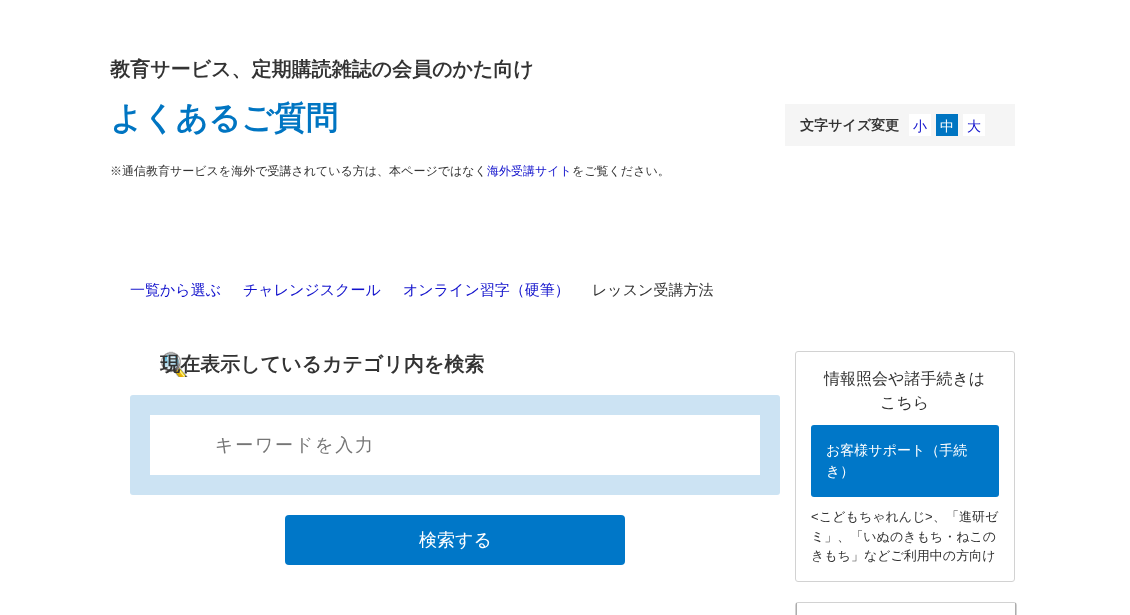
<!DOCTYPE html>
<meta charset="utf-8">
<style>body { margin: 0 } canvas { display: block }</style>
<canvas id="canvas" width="1130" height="615"></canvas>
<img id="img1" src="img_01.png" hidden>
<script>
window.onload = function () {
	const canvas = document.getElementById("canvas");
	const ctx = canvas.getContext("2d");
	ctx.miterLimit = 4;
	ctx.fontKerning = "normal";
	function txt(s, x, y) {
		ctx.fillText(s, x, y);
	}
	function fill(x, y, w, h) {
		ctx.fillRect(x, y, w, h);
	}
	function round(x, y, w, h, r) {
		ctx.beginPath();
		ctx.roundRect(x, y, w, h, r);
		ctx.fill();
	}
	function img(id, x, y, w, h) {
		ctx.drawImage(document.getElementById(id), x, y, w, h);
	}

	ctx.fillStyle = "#FFFFFF";
	fill(0, 0, 1130, 615);
	ctx.fillStyle = "#F5F5F5";
	fill(785, 104, 230, 42);
	ctx.fillStyle = "#FFFFFF";
	fill(909, 114, 22, 22);
	ctx.fillStyle = "#0075C2";
	fill(936, 114, 22, 22);
	ctx.fillStyle = "#FFFFFF";
	fill(963, 114, 22, 22);
	img("img1", 161, 351, 27, 26);
	ctx.fillStyle = "#CCE3F3";
	round(130, 395, 650, 100, 3);
	ctx.fillStyle = "#FFFFFF";
	fill(150, 415, 610, 60);
	ctx.fillStyle = "#0077C8";
	round(285, 515, 340, 50, 4);
	ctx.beginPath();
	ctx.roundRect(795.5, 351.5, 219, 230, 2.5);
	ctx.strokeStyle = "#D2D2D2";
	ctx.stroke();
	round(811, 425, 188, 72, 3);
	ctx.beginPath();
	ctx.roundRect(795.5, 602.5, 221, 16, 2.5);
	ctx.stroke();
	ctx.fillStyle = "#ADADAD";
	fill(1015, 603, 1, 12);
	fill(796, 603, 1, 12);
	ctx.font = "bold 20px WenQuanYi Zen Hei";
	ctx.fillStyle = "#333333";
	txt("教育サービス、定期購読雑誌の会員のかた向け", 110, 76);
	ctx.font = "bold 32px WenQuanYi Zen Hei";
	ctx.fillStyle = "#0075C2";
	txt("よくあるご質問", 110, 129);
	ctx.font = "500 12px WenQuanYi Zen Hei";
	ctx.fillStyle = "#333333";
	txt("※通信教育サービスを海外で受講されている方は、本ページではなく", 110, 175);
	ctx.fillStyle = "#1111CC";
	txt("海外受講サイト", 487, 175);
	ctx.fillStyle = "#333333";
	txt("をご覧ください。", 572, 175);
	ctx.font = "bold 14px WenQuanYi Zen Hei";
	txt("文字サイズ変更", 800, 130);
	ctx.font = "500 14px WenQuanYi Zen Hei";
	ctx.fillStyle = "#1111CC";
	txt("小", 913, 131);
	ctx.fillStyle = "#FFFFFF";
	txt("中", 940, 131);
	ctx.fillStyle = "#1111CC";
	txt("大", 967, 131);
	ctx.font = "500 15px WenQuanYi Zen Hei";
	txt("一覧から選ぶ", 130, 295);
	txt("チャレンジスクール", 243, 295);
	txt("オンライン習字（硬筆）", 403, 295);
	ctx.fillStyle = "#333333";
	txt("レッスン受講方法", 592, 295);
	ctx.font = "bold 20px WenQuanYi Zen Hei";
	txt("現在表示しているカテゴリ内を検索", 160, 371);
	ctx.letterSpacing = "1.75px";
	ctx.font = "500 18px WenQuanYi Zen Hei";
	ctx.fillStyle = "#757575";
	txt("キーワードを入力", 215, 451);
	ctx.letterSpacing = "0px";
	ctx.fillStyle = "#FFFFFF";
	txt("検索する", 419, 546);
	ctx.font = "500 16px WenQuanYi Zen Hei";
	ctx.fillStyle = "#333333";
	txt("情報照会や諸手続きは", 824, 384);
	txt("こちら", 880, 408);
	ctx.font = "500 14px WenQuanYi Zen Hei";
	ctx.fillStyle = "#FFFFFF";
	txt("お客様サポート（手続", 826, 455);
	txt("き）", 826, 476);
	ctx.font = "13px Liberation Sans";
	ctx.fillStyle = "#333333";
	txt("<", 811, 521);
	ctx.font = "500 13px WenQuanYi Zen Hei";
	txt("こどもちゃれんじ", 819, 521);
	ctx.font = "13px Liberation Sans";
	txt(">", 925, 521);
	ctx.font = "500 13px WenQuanYi Zen Hei";
	txt("、「進研ゼ", 933, 521);
	txt("ミ」、「いぬのきもち・ねこの", 811, 541);
	txt("きもち」などご利用中の方向け", 811, 560);
};
</script>
